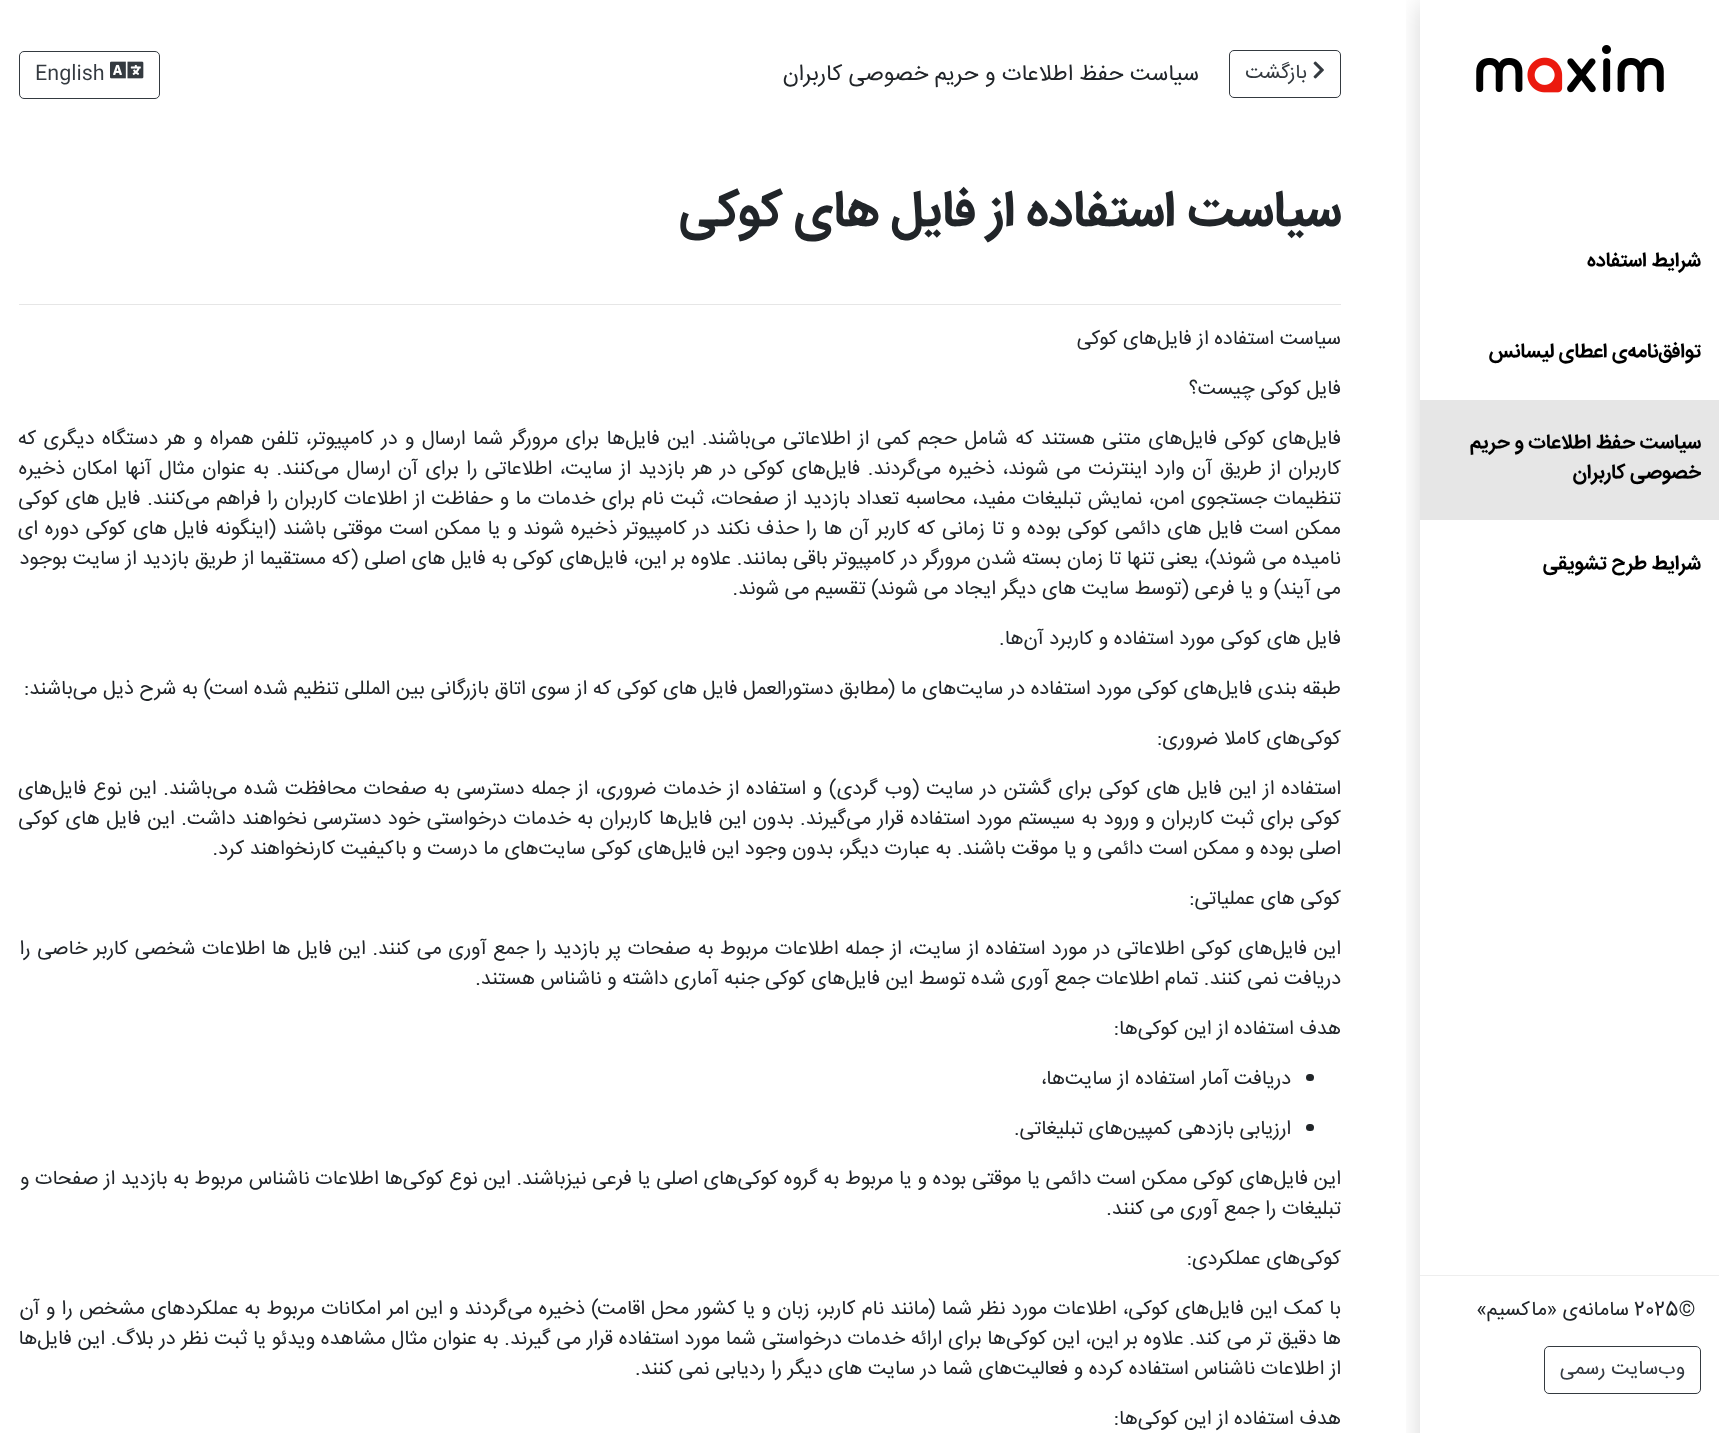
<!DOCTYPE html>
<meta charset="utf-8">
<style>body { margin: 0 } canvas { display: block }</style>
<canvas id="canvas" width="1719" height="1433"></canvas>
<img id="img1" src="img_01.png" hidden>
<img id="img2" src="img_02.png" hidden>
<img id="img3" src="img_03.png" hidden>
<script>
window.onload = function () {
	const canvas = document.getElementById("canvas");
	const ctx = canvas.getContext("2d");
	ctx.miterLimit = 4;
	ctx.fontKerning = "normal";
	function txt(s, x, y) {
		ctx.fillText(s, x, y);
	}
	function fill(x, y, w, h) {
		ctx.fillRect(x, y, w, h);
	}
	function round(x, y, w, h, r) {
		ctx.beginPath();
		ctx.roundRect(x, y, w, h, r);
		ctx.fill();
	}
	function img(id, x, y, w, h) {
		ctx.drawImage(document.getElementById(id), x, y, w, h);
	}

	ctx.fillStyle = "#FFFFFF";
	fill(0, 0, 1719, 1433);
	ctx.save();
	ctx.beginPath();
	ctx.rect(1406, 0, 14, 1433);
	ctx.clip();
	ctx.fillStyle = "rgba(0, 0, 0, 0.16)";
	ctx.filter = "blur(12.5px)";
	ctx.beginPath();
	ctx.rect(1420, 4, 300, 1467);
	ctx.fill();
	ctx.filter = "none";
	ctx.restore();
	img("img1", 1476, 45, 188, 48);
	ctx.fillStyle = "#E6E6E6";
	fill(1420, 400, 299, 120);
	ctx.fillStyle = "#EEEEEE";
	fill(1420, 1275, 299, 1);
	ctx.beginPath();
	ctx.roundRect(1544.5, 1346.5, 156, 47, 4.5);
	ctx.strokeStyle = "#343A40";
	ctx.stroke();
	ctx.beginPath();
	ctx.roundRect(1229.5, 50.5, 111, 47, 4.5);
	ctx.stroke();
	img("img2", 1313, 61, 11, 18);
	ctx.beginPath();
	ctx.roundRect(19.5, 51.5, 140, 47, 4.5);
	ctx.stroke();
	img("img3", 110, 61, 34, 18);
	ctx.fillStyle = "#E6E6E6";
	fill(19, 304, 1322, 1);
	ctx.fillStyle = "#212529";
	round(1306, 1074, 8, 7, 3.5);
	round(1306, 1124, 8, 7, 3.5);
	ctx.direction = "rtl";
	ctx.font = "bold 20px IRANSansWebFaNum";
	ctx.fillStyle = "#000000";
	txt("شرایط استفاده", 1701, 266);
	txt("توافق‌نامه‌ی اعطای لیسانس", 1701, 357);
	txt("سیاست حفظ اطلاعات و حریم", 1701, 448);
	txt("خصوصی کاربران", 1701, 478);
	txt("شرایط طرح تشویقی", 1701, 569);
	ctx.direction = "ltr";
	ctx.font = "20px IRANSansWebFaNum";
	ctx.fillStyle = "#212529";
	txt("2025©", 1634, 1315);
	ctx.direction = "rtl";
	txt("سامانه‌ی «ماکسیم»", 1629, 1315);
	ctx.fillStyle = "#343A40";
	txt("وب‌سایت رسمی", 1685, 1374);
	txt("بازگشت", 1307, 78);
	ctx.font = "22.5px IRANSansWebFaNum";
	ctx.fillStyle = "#212529";
	txt("سیاست حفظ اطلاعات و حریم خصوصی کاربران", 1199, 80);
	ctx.direction = "ltr";
	ctx.font = "20px IRANSansWebFaNum";
	ctx.fillStyle = "#343A40";
	txt("English", 35, 79);
	ctx.direction = "rtl";
	ctx.font = "bold 50px IRANSansWebFaNum";
	ctx.fillStyle = "#212529";
	txt("سیاست استفاده از فایل های کوکی", 1341, 225);
	ctx.font = "20px IRANSansWebFaNum";
	txt("سیاست استفاده از فایل‌های کوکی", 1341, 344);
	txt("فایل کوکی چیست؟", 1341, 394);
	ctx.wordSpacing = "1.75px";
	txt("فایل‌های کوکی فایل‌های متنی هستند که شامل حجم کمی از اطلاعاتی می‌باشند. این فایل‌ها برای مرورگر شما ارسال و در کامپیوتر، تلفن همراه و هر دستگاه دیگری که", 1341, 444);
	txt("کاربران از طریق آن وارد اینترنت می شوند، ذخیره می‌گردند. فایل‌های کوکی در هر بازدید از سایت، اطلاعاتی را برای آن ارسال می‌کنند. به عنوان مثال آنها امکان ذخیره", 1341, 474);
	ctx.wordSpacing = "0.9px";
	txt("تنظیمات جستجوی امن، نمایش تبلیغات مفید، محاسبه تعداد بازدید از صفحات، ثبت نام برای خدمات ما و حفاظت از اطلاعات کاربران را فراهم می‌کنند. فایل های کوکی", 1341, 504);
	ctx.wordSpacing = "1.1px";
	txt("ممکن است فایل های دائمی کوکی بوده و تا زمانی که کاربر آن ها را حذف نکند در کامپیوتر ذخیره شوند و یا ممکن است موقتی باشند (اینگونه فایل های کوکی دوره ای", 1341, 534);
	ctx.wordSpacing = "0px";
	txt("نامیده می شوند)، یعنی تنها تا زمان بسته شدن مرورگر در کامپیوتر باقی بمانند. علاوه بر این، فایل‌های کوکی به فایل های اصلی (که مستقیما از طریق بازدید از سایت بوجود", 1341, 564);
	txt("می آیند) و یا فرعی (توسط سایت های دیگر ایجاد می شوند) تقسیم می شوند.", 1341, 594);
	txt("فایل های کوکی مورد استفاده و کاربرد آن‌ها.", 1341, 644);
	txt("طبقه بندی فایل‌های کوکی مورد استفاده در سایت‌های ما (مطابق دستورالعمل فایل های کوکی که از سوی اتاق بازرگانی بین المللی تنظیم شده است) به شرح ذیل می‌باشند:", 1341, 694);
	txt("کوکی‌های کاملا ضروری:", 1341, 744);
	ctx.wordSpacing = "1.25px";
	txt("استفاده از این فایل های کوکی برای گشتن در سایت (وب گردی) و استفاده از خدمات ضروری، از جمله دسترسی به صفحات محافظت شده می‌باشند. این نوع فایل‌های", 1341, 794);
	ctx.wordSpacing = "0.9px";
	txt("کوکی برای ثبت کاربران و ورود به سیستم مورد استفاده قرار می‌گیرند. بدون این فایل‌ها کاربران به خدمات درخواستی خود دسترسی نخواهند داشت. این فایل های کوکی", 1341, 824);
	ctx.wordSpacing = "0px";
	txt("اصلی بوده و ممکن است دائمی و یا موقت باشند. به عبارت دیگر، بدون وجود این فایل‌های کوکی سایت‌های ما درست و باکیفیت کارنخواهند کرد.", 1341, 854);
	txt("کوکی های عملیاتی:", 1341, 904);
	ctx.wordSpacing = "1px";
	txt("این فایل‌های کوکی اطلاعاتی در مورد استفاده از سایت، از جمله اطلاعات مربوط به صفحات پر بازدید را جمع آوری می کنند. این فایل ها اطلاعات شخصی کاربر خاصی را", 1341, 954);
	ctx.wordSpacing = "0px";
	txt("دریافت نمی کنند. تمام اطلاعات جمع آوری شده توسط این فایل‌های کوکی جنبه آماری داشته و ناشناس هستند.", 1341, 984);
	txt("هدف استفاده از این کوکی‌ها:", 1341, 1034);
	txt("دریافت", 1291, 1084);
	txt("آمار", 1229, 1084);
	txt("استفاده", 1195, 1084);
	txt("از", 1129, 1084);
	txt("سایت‌ها،", 1112, 1084);
	txt("ارزیابی", 1291, 1134);
	txt("بازدهی", 1234, 1134);
	txt("کمپین‌های", 1172, 1134);
	txt("تبلیغاتی.", 1083, 1134);
	txt("این فایل‌های کوکی ممکن است دائمی یا موقتی بوده و یا مربوط به گروه کوکی‌های اصلی یا فرعی نیزباشند. این نوع کوکی‌ها اطلاعات ناشناس مربوط به بازدید از صفحات و", 1341, 1184);
	txt("تبلیغات را جمع آوری می کنند.", 1341, 1214);
	txt("کوکی‌های عملکردی:", 1341, 1264);
	ctx.wordSpacing = "0.6px";
	txt("با کمک این فایل‌های کوکی، اطلاعات مورد نظر شما (مانند نام کاربر، زبان و یا کشور محل اقامت) ذخیره می‌گردند و این امر امکانات مربوط به عملکرد‌های مشخص را و آن", 1341, 1314);
	ctx.wordSpacing = "0.15px";
	txt("ها دقیق تر می کند. علاوه بر این، این کوکی‌ها برای ارائه خدمات درخواستی شما مورد استفاده قرار می گیرند. به عنوان مثال مشاهده ویدئو یا ثبت نظر در بلاگ. این فایل‌ها", 1341, 1344);
	ctx.wordSpacing = "0px";
	txt("از اطلاعات ناشناس استفاده کرده و فعالیت‌های شما در سایت های دیگر را ردیابی نمی کنند.", 1341, 1374);
	txt("هدف استفاده از این کوکی‌ها:", 1341, 1424);
};
</script>
